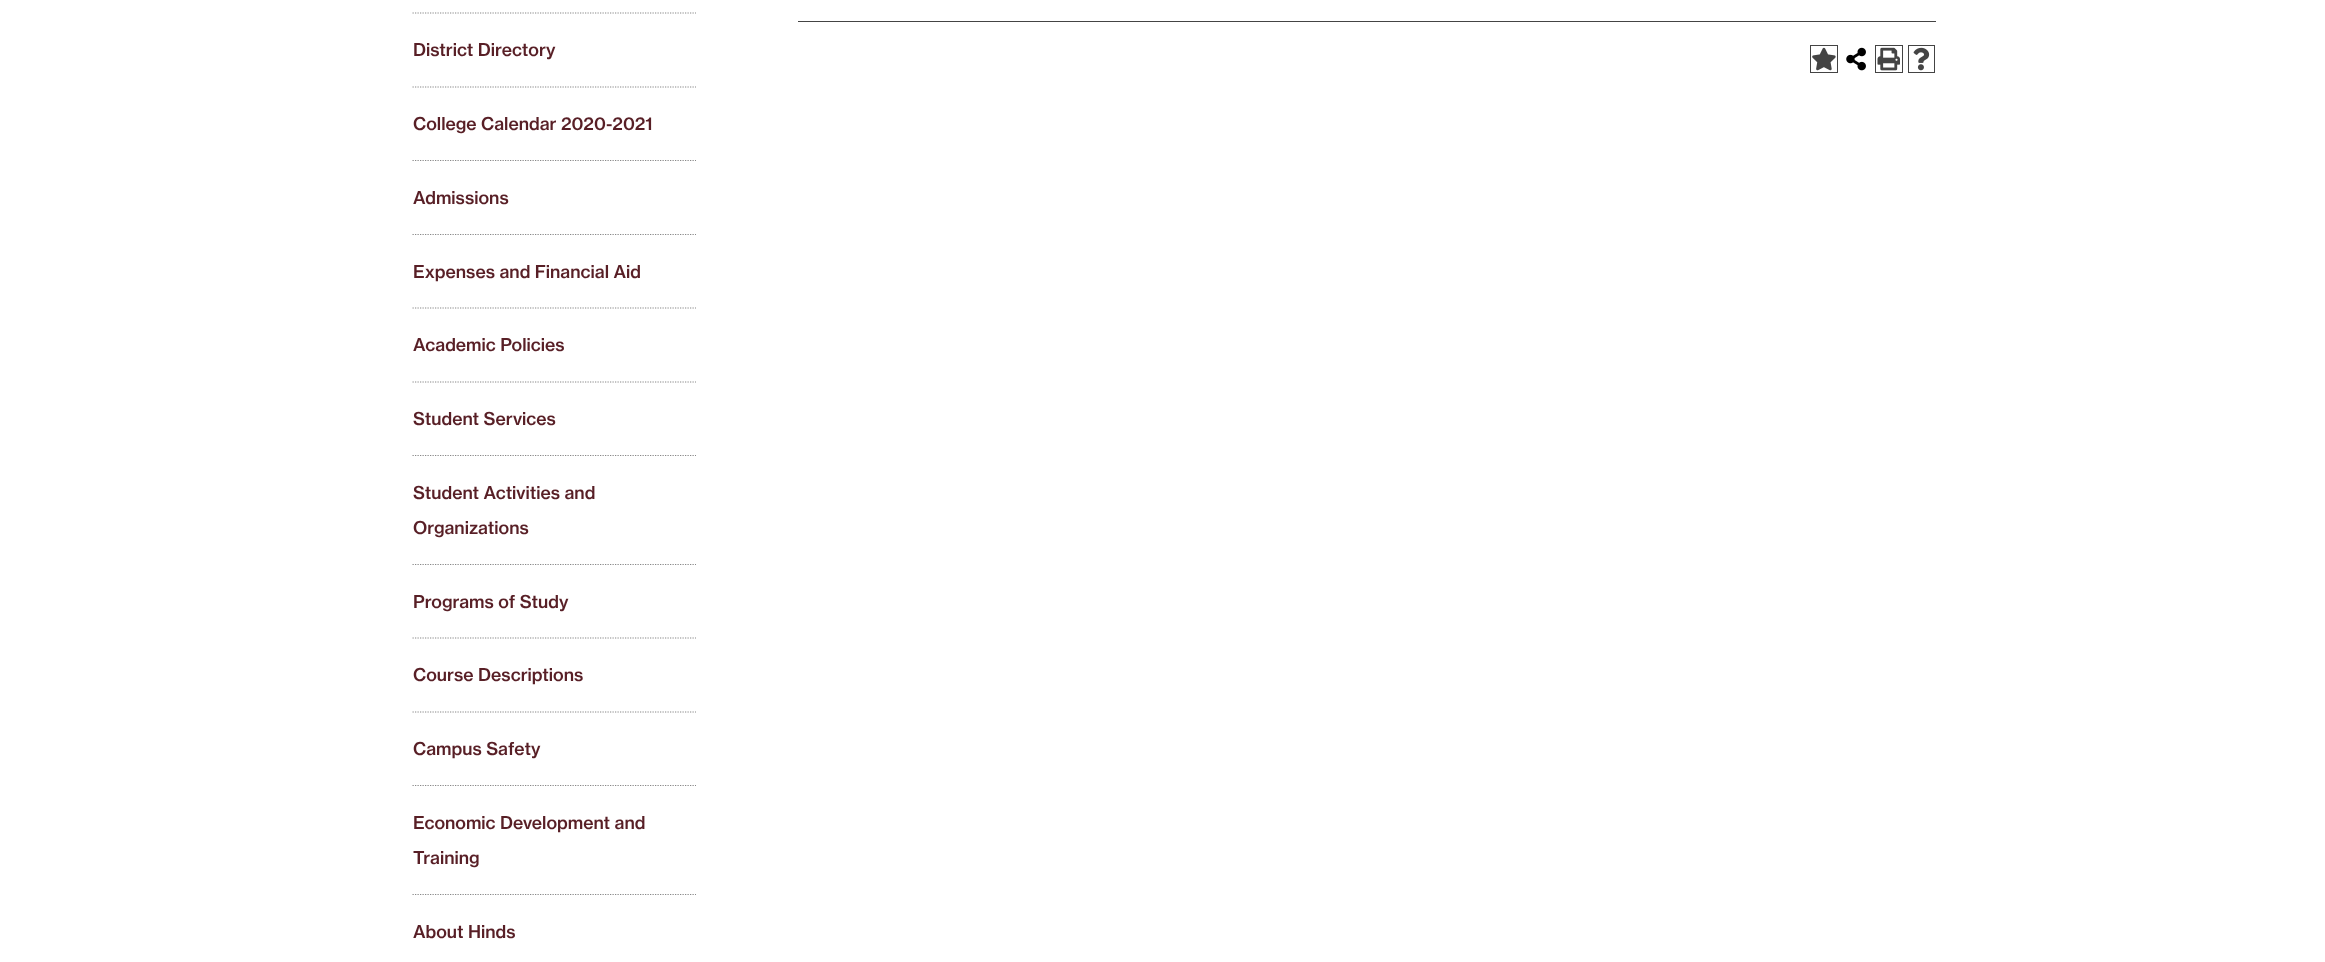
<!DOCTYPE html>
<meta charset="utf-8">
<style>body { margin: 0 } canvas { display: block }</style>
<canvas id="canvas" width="2325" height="962"></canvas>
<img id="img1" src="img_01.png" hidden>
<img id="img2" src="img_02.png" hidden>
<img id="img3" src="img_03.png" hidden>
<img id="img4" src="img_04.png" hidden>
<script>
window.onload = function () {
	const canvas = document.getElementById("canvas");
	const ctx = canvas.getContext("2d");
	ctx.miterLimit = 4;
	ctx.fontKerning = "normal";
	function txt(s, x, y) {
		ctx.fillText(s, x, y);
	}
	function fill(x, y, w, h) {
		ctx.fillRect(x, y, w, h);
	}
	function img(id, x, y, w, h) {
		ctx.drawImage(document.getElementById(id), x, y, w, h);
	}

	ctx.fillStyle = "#FFFFFF";
	fill(0, 0, 2325, 962);
	ctx.beginPath();
	ctx.moveTo(412.5, 13);
	ctx.lineTo(696, 13);
	ctx.strokeStyle = "#888888";
	ctx.lineWidth = 1.2;
	ctx.setLineDash([1.25, 1.25]);
	ctx.stroke();
	ctx.beginPath();
	ctx.moveTo(412.5, 87);
	ctx.lineTo(696, 87);
	ctx.stroke();
	ctx.beginPath();
	ctx.moveTo(412.5, 160.5);
	ctx.lineTo(696, 160.5);
	ctx.stroke();
	ctx.beginPath();
	ctx.moveTo(412.5, 234.5);
	ctx.lineTo(696, 234.5);
	ctx.stroke();
	ctx.beginPath();
	ctx.moveTo(412.5, 308);
	ctx.lineTo(696, 308);
	ctx.stroke();
	ctx.beginPath();
	ctx.moveTo(412.5, 382);
	ctx.lineTo(696, 382);
	ctx.stroke();
	ctx.beginPath();
	ctx.moveTo(412.5, 455.5);
	ctx.lineTo(696, 455.5);
	ctx.stroke();
	ctx.beginPath();
	ctx.moveTo(412.5, 564.5);
	ctx.lineTo(696, 564.5);
	ctx.stroke();
	ctx.beginPath();
	ctx.moveTo(412.5, 638);
	ctx.lineTo(696, 638);
	ctx.stroke();
	ctx.beginPath();
	ctx.moveTo(412.5, 712);
	ctx.lineTo(696, 712);
	ctx.stroke();
	ctx.beginPath();
	ctx.moveTo(412.5, 785.5);
	ctx.lineTo(696, 785.5);
	ctx.stroke();
	ctx.beginPath();
	ctx.moveTo(412.5, 894.5);
	ctx.lineTo(696, 894.5);
	ctx.stroke();
	ctx.fillStyle = "#444444";
	fill(798, 21, 1138, 1);
	ctx.strokeStyle = "#444444";
	ctx.lineWidth = 1;
	ctx.setLineDash([]);
	ctx.strokeRect(1810.5, 45.5, 27, 27);
	img("img1", 1812, 47, 24, 24);
	img("img2", 1846, 47, 20, 24);
	ctx.strokeRect(1875.5, 45.5, 27, 27);
	img("img3", 1877, 47, 23, 24);
	ctx.strokeRect(1908.5, 45.5, 26, 27);
	img("img4", 1913, 47, 17, 24);
	ctx.font = "500 17.5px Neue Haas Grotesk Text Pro";
	ctx.fillStyle = "#581F26";
	txt("District Directory", 413, 56);
	txt("College Calendar 2020-2021", 413, 130);
	txt("Admissions", 413, 204);
	txt("Expenses and Financial Aid", 413, 278);
	txt("Academic Policies", 413, 351);
	txt("Student Services", 413, 425);
	txt("Student Activities and", 413, 499);
	txt("Organizations", 413, 534);
	txt("Programs of Study", 413, 608);
	txt("Course Descriptions", 413, 681);
	txt("Campus Safety", 413, 755);
	txt("Economic Development and", 413, 829);
	txt("Training", 413, 864);
	txt("About Hinds", 413, 938);
};
</script>
